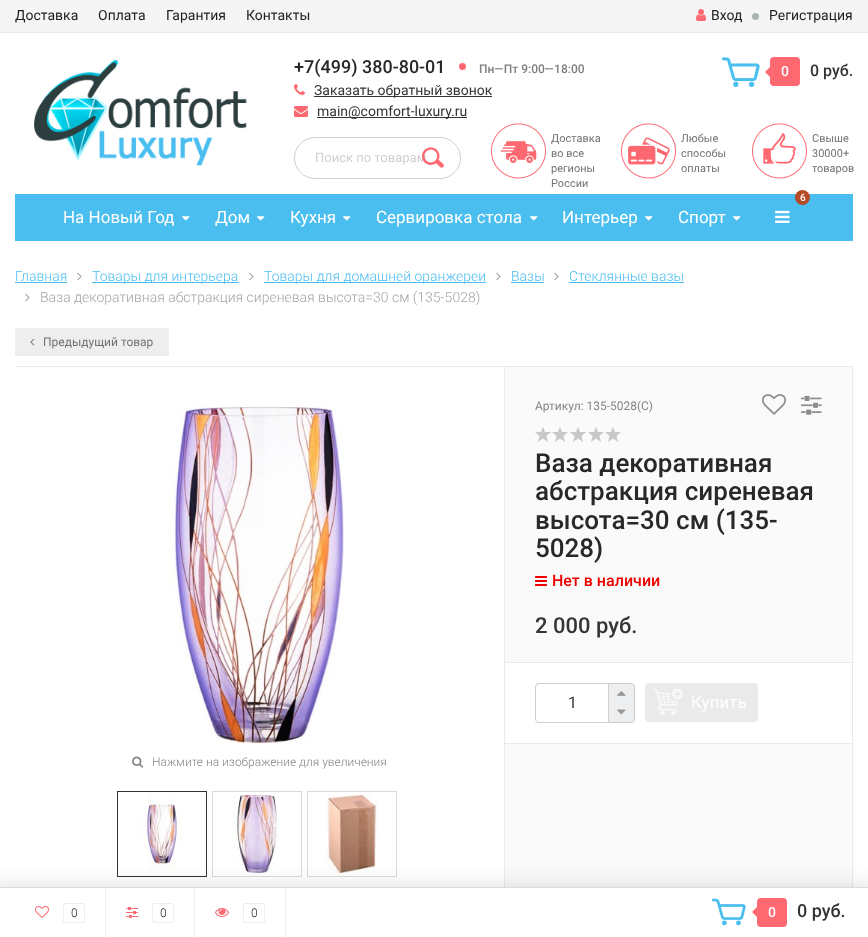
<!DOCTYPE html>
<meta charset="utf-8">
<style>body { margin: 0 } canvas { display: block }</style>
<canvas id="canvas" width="868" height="937"></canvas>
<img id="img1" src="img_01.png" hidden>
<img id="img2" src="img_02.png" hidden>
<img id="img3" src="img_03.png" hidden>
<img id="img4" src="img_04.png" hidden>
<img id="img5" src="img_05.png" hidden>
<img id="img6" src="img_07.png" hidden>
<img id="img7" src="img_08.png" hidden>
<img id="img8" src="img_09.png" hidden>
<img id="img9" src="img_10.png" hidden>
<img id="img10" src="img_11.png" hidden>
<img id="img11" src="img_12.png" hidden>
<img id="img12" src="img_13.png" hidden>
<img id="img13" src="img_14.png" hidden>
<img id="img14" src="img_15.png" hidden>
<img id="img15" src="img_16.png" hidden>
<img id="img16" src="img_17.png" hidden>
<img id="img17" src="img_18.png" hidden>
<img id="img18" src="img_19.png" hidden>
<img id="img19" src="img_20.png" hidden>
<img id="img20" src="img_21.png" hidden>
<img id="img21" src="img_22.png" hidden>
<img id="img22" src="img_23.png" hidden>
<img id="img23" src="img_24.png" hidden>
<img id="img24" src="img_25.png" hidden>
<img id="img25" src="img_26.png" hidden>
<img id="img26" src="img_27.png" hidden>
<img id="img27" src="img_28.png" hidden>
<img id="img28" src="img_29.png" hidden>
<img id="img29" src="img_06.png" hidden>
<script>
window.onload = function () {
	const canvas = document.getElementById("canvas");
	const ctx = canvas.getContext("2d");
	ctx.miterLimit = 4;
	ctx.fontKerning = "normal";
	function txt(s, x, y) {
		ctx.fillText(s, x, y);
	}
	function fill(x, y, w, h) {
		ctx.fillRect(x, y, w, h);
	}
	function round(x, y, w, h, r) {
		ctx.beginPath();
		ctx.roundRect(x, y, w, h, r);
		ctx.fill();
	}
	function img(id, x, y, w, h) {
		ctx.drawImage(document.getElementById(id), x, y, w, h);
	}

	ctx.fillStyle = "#FFFFFF";
	fill(0, 0, 868, 937);
	ctx.fillStyle = "#F5F5F5";
	fill(0, 0, 868, 32);
	ctx.fillStyle = "#EAEAEA";
	fill(0, 32, 868, 1);
	img("img1", 696, 9, 10, 12);
	ctx.fillStyle = "#ACB3B4";
	ctx.beginPath();
	ctx.arc(755.5, 16.5, 3.5, 0, Math.PI * 2);
	ctx.fill();
	img("img2", 34, 59, 213, 107);
	ctx.fillStyle = "#FD6871";
	ctx.beginPath();
	ctx.arc(462.5, 66.5, 3.5, 0, Math.PI * 2);
	ctx.fill();
	img("img3", 294, 84, 11, 11);
	ctx.fillStyle = "#343434";
	fill(314, 96, 178, 1);
	img("img4", 294, 106, 14, 11);
	fill(317, 117, 150, 1);
	img("img5", 722, 57, 38, 31);
	ctx.fillStyle = "#FD6871";
	ctx.beginPath();
	ctx.roundRect(772, 59, 26, 25, 2);
	ctx.fill();
	ctx.strokeStyle = "#FD6871";
	ctx.lineWidth = 4;
	ctx.stroke();
	ctx.beginPath();
	ctx.moveTo(774, 63);
	ctx.lineTo(774, 81);
	ctx.lineTo(765, 72);
	ctx.closePath();
	ctx.fill();
	ctx.beginPath();
	ctx.roundRect(294.5, 137.5, 166, 41, 20.5);
	ctx.strokeStyle = "#D0CFCF";
	ctx.lineWidth = 1;
	ctx.stroke();
	img("img6", 491, 123, 55, 56);
	img("img7", 621, 123, 55, 56);
	img("img8", 752, 123, 55, 56);
	ctx.fillStyle = "#4BBEF0";
	fill(15, 194, 838, 47);
	ctx.fillStyle = "#B64926";
	ctx.beginPath();
	ctx.arc(802.5, 197.5, 7.5, 0, Math.PI * 2);
	ctx.fill();
	img("img9", 775, 210, 15, 13);
	img("img10", 182, 216, 8, 5);
	img("img10", 257, 216, 8, 5);
	img("img10", 343, 216, 8, 5);
	img("img10", 530, 216, 8, 5);
	img("img10", 645, 216, 8, 5);
	img("img10", 733, 216, 8, 5);
	ctx.fillStyle = "#4BBEF0";
	fill(15, 282, 52, 1);
	img("img11", 77, 272, 5, 9);
	fill(92, 282, 147, 1);
	img("img11", 249, 272, 5, 9);
	fill(264, 282, 222, 1);
	img("img11", 496, 272, 5, 9);
	fill(511, 282, 33, 1);
	img("img11", 554, 272, 5, 9);
	fill(569, 282, 115, 1);
	img("img11", 25, 293, 5, 9);
	ctx.fillStyle = "#EEEEEE";
	fill(15, 328, 154, 28);
	img("img12", 30, 338, 5, 8);
	ctx.fillStyle = "#FAFAFA";
	fill(505, 367, 347, 520);
	ctx.strokeStyle = "#EAEAEA";
	ctx.strokeRect(504.5, 366.5, 348, 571);
	img("img13", 762, 394, 24, 21);
	img("img14", 801, 395, 21, 20);
	img("img15", 535, 427, 16, 15);
	img("img15", 552, 427, 16, 15);
	img("img15", 570, 427, 16, 15);
	img("img15", 588, 427, 16, 15);
	img("img15", 605, 427, 16, 15);
	img("img16", 535, 576, 12, 10);
	ctx.fillStyle = "#FFFFFF";
	fill(505, 663, 347, 80);
	ctx.fillStyle = "#EAEAEA";
	fill(505, 662, 347, 1);
	fill(505, 743, 347, 1);
	ctx.beginPath();
	ctx.roundRect(535.5, 683.5, 73, 39, [3.5, 0, 0, 3.5]);
	ctx.strokeStyle = "#D0CFCF";
	ctx.stroke();
	ctx.fillStyle = "#ECEEEF";
	ctx.beginPath();
	ctx.roundRect(609, 683, 26, 40, [0, 4, 4, 0]);
	ctx.fill();
	ctx.fillStyle = "rgba(0, 0, 0, 0.15)";
	ctx.beginPath();
	ctx.moveTo(609, 683);
	ctx.lineTo(631, 683);
	ctx.bezierCurveTo(633, 683, 635, 685, 635, 687);
	ctx.lineTo(635, 719);
	ctx.bezierCurveTo(635, 721, 633, 723, 631, 723);
	ctx.lineTo(609, 723);
	ctx.closePath();
	ctx.moveTo(609, 684);
	ctx.lineTo(631, 684);
	ctx.bezierCurveTo(633, 684, 634, 685, 634, 687);
	ctx.lineTo(634, 719);
	ctx.bezierCurveTo(634, 721, 633, 722, 631, 722);
	ctx.lineTo(609, 722);
	ctx.closePath();
	ctx.fill("evenodd");
	img("img17", 617, 691, 9, 5);
	img("img18", 617, 709, 9, 6);
	ctx.fillStyle = "#EAEAEA";
	round(645, 683, 113, 39, 4);
	img("img19", 653, 688, 30, 28);
	fill(15, 366, 489, 1);
	img("img20", 168, 407, 178, 336);
	img("img21", 132, 756, 12, 12);
	ctx.strokeStyle = "#333333";
	ctx.strokeRect(117.5, 791.5, 89, 85);
	img("img22", 138, 795, 48, 78);
	ctx.strokeStyle = "#DADADA";
	ctx.strokeRect(212.5, 791.5, 89, 85);
	img("img23", 231, 795, 49, 78);
	ctx.strokeRect(307.5, 791.5, 89, 85);
	img("img24", 326, 795, 52, 78);
	ctx.fillStyle = "rgba(50, 50, 50, 0.15)";
	ctx.filter = "blur(10px)";
	ctx.beginPath();
	ctx.rect(-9, 885, 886, 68);
	ctx.fill();
	ctx.filter = "none";
	ctx.fillStyle = "#FFFFFF";
	fill(0, 888, 868, 49);
	ctx.fillStyle = "#DBDBDB";
	fill(0, 887, 868, 1);
	ctx.fillStyle = "#EDEDED";
	fill(105, 888, 1, 49);
	img("img25", 35, 906, 14, 12);
	ctx.beginPath();
	ctx.roundRect(63.5, 903.5, 21, 19, 1.5);
	ctx.strokeStyle = "#EEEEEE";
	ctx.stroke();
	fill(194, 888, 1, 49);
	img("img26", 126, 907, 12, 11);
	ctx.beginPath();
	ctx.roundRect(152.5, 903.5, 21, 19, 1.5);
	ctx.stroke();
	fill(285, 888, 1, 49);
	img("img27", 215, 908, 14, 9);
	ctx.beginPath();
	ctx.roundRect(243.5, 903.5, 21, 19, 1.5);
	ctx.stroke();
	img("img28", 712, 898, 34, 28);
	ctx.fillStyle = "#FD6871";
	ctx.beginPath();
	ctx.roundRect(759, 900, 26, 25, 2);
	ctx.fill();
	ctx.strokeStyle = "#FD6871";
	ctx.lineWidth = 4;
	ctx.stroke();
	ctx.beginPath();
	ctx.moveTo(761, 903);
	ctx.lineTo(761, 921);
	ctx.lineTo(752, 912);
	ctx.closePath();
	ctx.fill();
	ctx.font = "14px Roboto";
	ctx.fillStyle = "#222222";
	txt("Доставка", 15, 20);
	txt("Оплата", 98, 20);
	txt("Гарантия", 166, 20);
	txt("Контакты", 246, 20);
	txt("Вход", 711, 20);
	txt("Регистрация", 769, 20);
	ctx.font = "500 18px Roboto";
	ctx.fillStyle = "#282828";
	txt("+7(499) 380-80-01", 294, 73);
	ctx.font = "500 12px Roboto";
	ctx.fillStyle = "#7F7F7F";
	txt("Пн—Пт 9:00—18:00", 479, 73);
	ctx.font = "14px Roboto";
	ctx.fillStyle = "#343434";
	txt("Заказать обратный звонок", 314, 95);
	txt("main@comfort-luxury.ru", 317, 116);
	ctx.font = "500 14px Roboto";
	ctx.fillStyle = "#FFFFFF";
	txt("0", 781, 76);
	ctx.font = "500 16px Roboto";
	ctx.fillStyle = "#343434";
	txt("0 руб.", 810, 76);
	ctx.font = "13px Roboto";
	ctx.fillStyle = "#CFCFCF";
	txt("Поиск по товарам", 315, 162);
	img("img29", 422, 147, 22, 21);
	ctx.font = "11px Roboto";
	ctx.fillStyle = "#717171";
	txt("Доставка", 551, 142);
	txt("во все", 551, 157);
	txt("регионы", 551, 172);
	txt("России", 551, 187);
	txt("Любые", 681, 142);
	txt("способы", 681, 157);
	txt("оплаты", 681, 172);
	txt("Свыше", 812, 142);
	txt("30000+", 812, 157);
	txt("товаров", 812, 172);
	ctx.font = "500 10px Roboto";
	ctx.fillStyle = "#FFFFFF";
	txt("6", 800, 201);
	ctx.font = "17px Roboto";
	txt("На Новый Год", 63, 223);
	txt("Дом", 215, 223);
	txt("Кухня", 290, 223);
	txt("Сервировка стола", 376, 223);
	txt("Интерьер", 562, 223);
	txt("Спорт", 678, 223);
	ctx.font = "300 14px Roboto";
	ctx.fillStyle = "#4BBEF0";
	txt("Главная", 15, 281);
	txt("Товары для интерьера", 92, 281);
	txt("Товары для домашней оранжереи", 264, 281);
	txt("Вазы", 511, 281);
	txt("Стеклянные вазы", 569, 281);
	ctx.fillStyle = "#A3A3A3";
	txt("Ваза декоративная абстракция сиреневая высота=30 см (135-5028)", 40, 302);
	ctx.font = "12px Roboto";
	ctx.fillStyle = "#717171";
	txt("Предыдущий товар", 43, 346);
	ctx.fillStyle = "#858585";
	txt("Артикул: 135-5028(C)", 535, 410);
	ctx.font = "500 26px Roboto";
	ctx.fillStyle = "#282828";
	txt("Ваза декоративная", 535, 472);
	txt("абстракция сиреневая", 535, 500);
	txt("высота=30 см (135-", 535, 529);
	txt("5028)", 535, 557);
	ctx.font = "500 16px Roboto";
	ctx.fillStyle = "#EE0000";
	txt("Нет в наличии", 552, 586);
	ctx.font = "500 22px Roboto";
	ctx.fillStyle = "#343434";
	txt("2 000 руб.", 535, 633);
	ctx.font = "16px Roboto";
	txt("1", 568, 708);
	ctx.font = "17px Roboto";
	ctx.fillStyle = "#FFFFFF";
	txt("Купить", 691, 708);
	ctx.font = "300 12px Roboto";
	ctx.fillStyle = "#858585";
	txt("Нажмите на изображение для увеличения", 152, 766);
	ctx.fillStyle = "#222222";
	txt("0", 71, 917);
	txt("0", 160, 917);
	txt("0", 251, 917);
	ctx.font = "500 14px Roboto";
	ctx.fillStyle = "#FFFFFF";
	txt("0", 768, 917);
	ctx.font = "500 18px Roboto";
	ctx.fillStyle = "#343434";
	txt("0 руб.", 797, 917);
};
</script>
